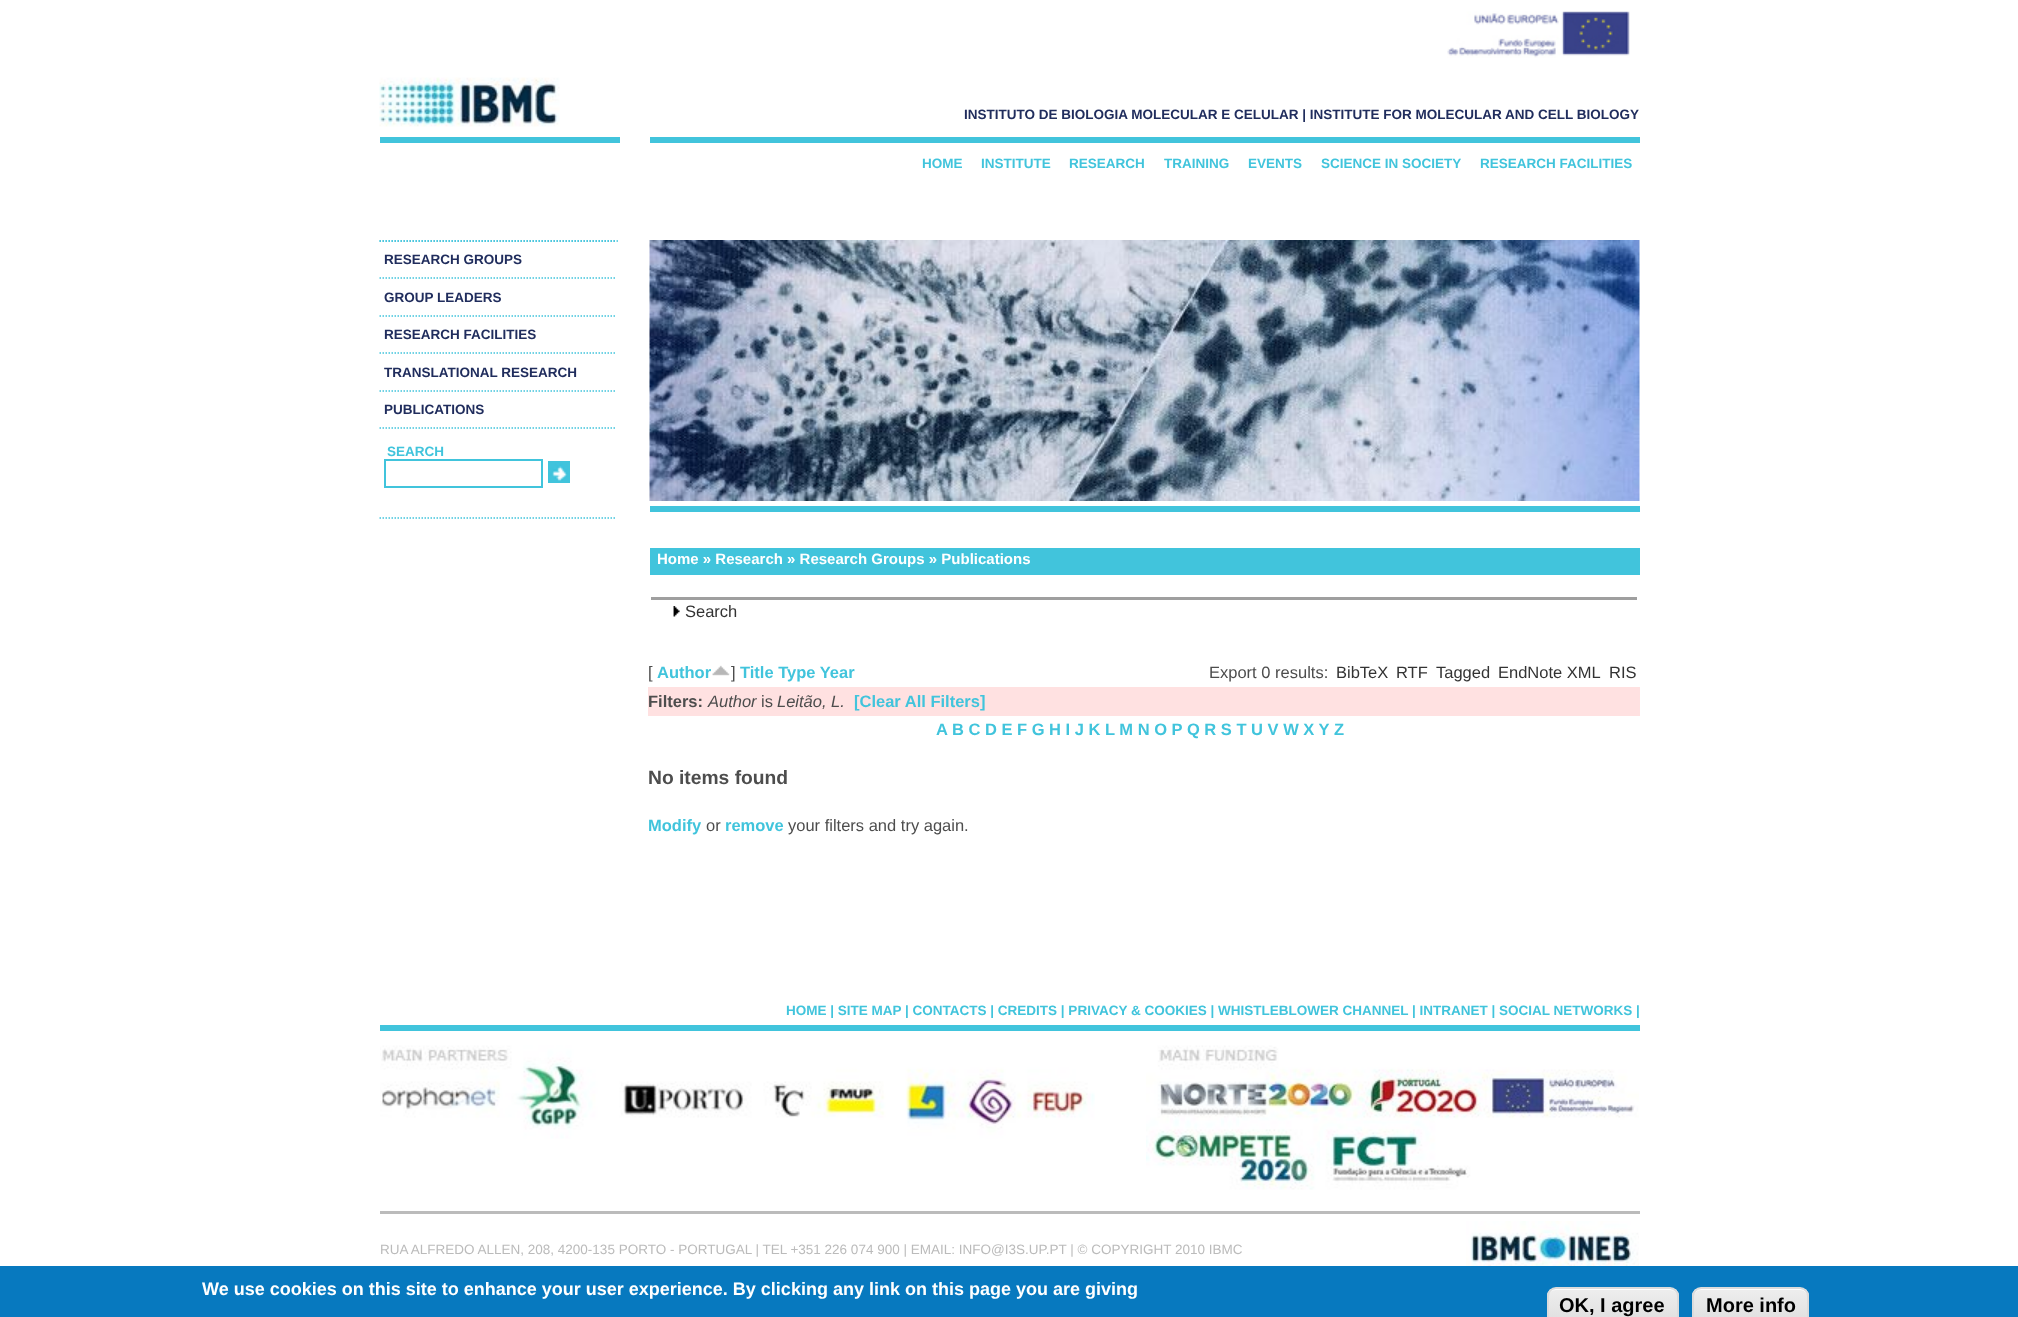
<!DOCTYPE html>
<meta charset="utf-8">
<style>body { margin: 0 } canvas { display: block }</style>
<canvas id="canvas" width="2018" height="1317"></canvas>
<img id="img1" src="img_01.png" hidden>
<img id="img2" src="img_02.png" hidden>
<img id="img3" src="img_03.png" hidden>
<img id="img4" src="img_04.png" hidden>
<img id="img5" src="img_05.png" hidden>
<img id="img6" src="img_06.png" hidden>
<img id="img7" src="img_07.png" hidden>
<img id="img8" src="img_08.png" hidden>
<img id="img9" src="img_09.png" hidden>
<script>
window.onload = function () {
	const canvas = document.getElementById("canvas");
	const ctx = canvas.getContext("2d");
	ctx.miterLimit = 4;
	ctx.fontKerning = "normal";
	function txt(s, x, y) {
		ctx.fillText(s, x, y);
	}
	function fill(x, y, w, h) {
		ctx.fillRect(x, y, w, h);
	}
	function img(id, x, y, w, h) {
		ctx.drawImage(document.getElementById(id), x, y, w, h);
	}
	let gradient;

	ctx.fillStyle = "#FFFFFF";
	fill(0, 0, 2018, 1317);
	img("img1", 1447, 11, 183, 47);
	ctx.fillStyle = "#41C4DC";
	fill(380, 137, 240, 6);
	img("img2", 379, 77, 181, 50);
	fill(650, 137, 990, 6);
	ctx.beginPath();
	ctx.moveTo(379.5, 241);
	ctx.lineTo(619.5, 241);
	ctx.strokeStyle = "#41C4DC";
	ctx.lineWidth = 1.5;
	ctx.setLineDash([1.5, 1.5]);
	ctx.stroke();
	ctx.beginPath();
	ctx.moveTo(379.5, 241);
	ctx.lineTo(616.5, 241);
	ctx.stroke();
	ctx.beginPath();
	ctx.moveTo(379.5, 278);
	ctx.lineTo(616.5, 278);
	ctx.stroke();
	ctx.beginPath();
	ctx.moveTo(379.5, 316);
	ctx.lineTo(616.5, 316);
	ctx.stroke();
	ctx.beginPath();
	ctx.moveTo(379.5, 353);
	ctx.lineTo(616.5, 353);
	ctx.stroke();
	ctx.beginPath();
	ctx.moveTo(379.5, 391);
	ctx.lineTo(616.5, 391);
	ctx.stroke();
	ctx.beginPath();
	ctx.moveTo(379.5, 428);
	ctx.lineTo(616.5, 428);
	ctx.stroke();
	ctx.beginPath();
	ctx.moveTo(379.5, 518);
	ctx.lineTo(616.5, 518);
	ctx.stroke();
	ctx.lineWidth = 2;
	ctx.setLineDash([]);
	ctx.strokeRect(385, 460, 157, 27);
	img("img3", 550, 463, 18, 18);
	ctx.strokeRect(549, 462, 20, 20);
	fill(650, 506, 990, 6);
	img("img4", 649, 240, 991, 261);
	fill(650, 548, 990, 27);
	ctx.fillStyle = "#9F9F9F";
	fill(651, 597, 986, 3);
	img("img5", 673, 606, 7, 11);
	img("img6", 712, 665, 18, 11);
	ctx.fillStyle = "#FFE1E1";
	fill(648, 687, 992, 29);
	ctx.fillStyle = "#41C4DC";
	fill(380, 1025, 1260, 6);
	img("img7", 380, 1045, 715, 94);
	img("img8", 1146, 1045, 493, 145);
	ctx.fillStyle = "#BBBBBB";
	fill(380, 1211, 1260, 3);
	img("img9", 1466, 1221, 173, 45);
	ctx.fillStyle = "#0779BF";
	fill(0, 1266, 2018, 51);
	ctx.save();
	ctx.beginPath();
	ctx.roundRect(1547, 1287, 132, 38, 9);
	ctx.clip();
	gradient = ctx.createLinearGradient(1613, 1289, 1613, 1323);
	gradient.addColorStop(0.05, "#EDEDED");
	gradient.addColorStop(1, "#DFDFDF");
	ctx.fillStyle = gradient;
	fill(1547, 1289, 132, 28);
	ctx.restore();
	ctx.fillStyle = "#FFFFFF";
	ctx.beginPath();
	ctx.moveTo(1556, 1290);
	ctx.lineTo(1670, 1290);
	ctx.bezierCurveTo(1674, 1290, 1677, 1293, 1677, 1298);
	ctx.bezierCurveTo(1677, 1284, 1658, 1289, 1650, 1289);
	ctx.lineTo(1575, 1289);
	ctx.bezierCurveTo(1567, 1289, 1548, 1284, 1548, 1298);
	ctx.bezierCurveTo(1548, 1293, 1551, 1290, 1556, 1290);
	ctx.closePath();
	ctx.fill();
	ctx.beginPath();
	ctx.roundRect(1548, 1288, 130, 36, 8);
	ctx.strokeStyle = "#DCDCDC";
	ctx.stroke();
	ctx.save();
	ctx.beginPath();
	ctx.roundRect(1692, 1287, 117, 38, 9);
	ctx.clip();
	gradient = ctx.createLinearGradient(1751, 1289, 1751, 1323);
	gradient.addColorStop(0.05, "#EDEDED");
	gradient.addColorStop(1, "#DFDFDF");
	ctx.fillStyle = gradient;
	fill(1692, 1289, 117, 28);
	ctx.restore();
	ctx.beginPath();
	ctx.moveTo(1701, 1290);
	ctx.lineTo(1800, 1290);
	ctx.bezierCurveTo(1804, 1290, 1808, 1293, 1808, 1298);
	ctx.bezierCurveTo(1808, 1285, 1792, 1289, 1784, 1289);
	ctx.lineTo(1718, 1289);
	ctx.bezierCurveTo(1710, 1289, 1694, 1285, 1694, 1298);
	ctx.bezierCurveTo(1694, 1293, 1697, 1290, 1701, 1290);
	ctx.closePath();
	ctx.fill();
	ctx.beginPath();
	ctx.roundRect(1693, 1288, 115, 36, 8);
	ctx.stroke();
	ctx.font = "bold 13.5px Liberation Sans";
	ctx.fillStyle = "#202D5D";
	txt("INSTITUTO DE BIOLOGIA MOLECULAR E CELULAR | INSTITUTE FOR MOLECULAR AND CELL BIOLOGY", 964, 119);
	ctx.fillStyle = "#41C4DC";
	txt("HOME", 922, 168);
	txt("INSTITUTE", 981, 168);
	txt("RESEARCH", 1069, 168);
	txt("TRAINING", 1164, 168);
	txt("EVENTS", 1248, 168);
	txt("SCIENCE IN SOCIETY", 1321, 168);
	txt("RESEARCH FACILITIES", 1480, 168);
	ctx.fillStyle = "#202D5D";
	txt("RESEARCH GROUPS", 384, 264);
	txt("GROUP LEADERS", 384, 302);
	txt("RESEARCH FACILITIES", 384, 339);
	txt("TRANSLATIONAL RESEARCH", 384, 377);
	txt("PUBLICATIONS", 384, 414);
	ctx.fillStyle = "#41C4DC";
	txt("SEARCH", 387, 456);
	ctx.font = "bold 15px Liberation Sans";
	ctx.fillStyle = "#FFFFFF";
	txt("Home » Research » Research Groups » Publications", 657, 564);
	ctx.font = "16.5px Liberation Sans";
	ctx.fillStyle = "#333333";
	txt("Search", 685, 617);
	ctx.fillStyle = "#4D4D4D";
	txt("[", 648, 678);
	ctx.font = "bold 16.5px Liberation Sans";
	ctx.fillStyle = "#41C4DC";
	txt("Author", 657, 678);
	ctx.font = "16.5px Liberation Sans";
	ctx.fillStyle = "#4D4D4D";
	txt("]", 731, 678);
	ctx.font = "bold 16.5px Liberation Sans";
	ctx.fillStyle = "#41C4DC";
	txt("Title Type Year", 740, 678);
	ctx.font = "16.5px Liberation Sans";
	ctx.fillStyle = "#4D4D4D";
	txt("Export 0 results:", 1209, 678);
	ctx.fillStyle = "#333333";
	txt("BibTeX", 1336, 678);
	txt("RTF", 1396, 678);
	txt("Tagged", 1436, 678);
	txt("EndNote XML", 1498, 678);
	txt("RIS", 1609, 678);
	ctx.font = "bold 16.5px Liberation Sans";
	ctx.fillStyle = "#4D4D4D";
	txt("Filters:", 648, 707);
	ctx.font = "italic 16.5px Liberation Sans";
	txt("Author", 708, 707);
	ctx.font = "16.5px Liberation Sans";
	txt("is", 761, 707);
	ctx.font = "italic 16.5px Liberation Sans";
	txt("Leitão, L.", 777, 707);
	ctx.font = "bold 16.5px Liberation Sans";
	ctx.fillStyle = "#41C4DC";
	txt("[Clear All Filters]", 854, 707);
	txt("A B C D E F G H I J K L M N O P Q R S T U V W X Y Z", 936, 735);
	ctx.font = "bold 19.25px Liberation Sans";
	ctx.fillStyle = "#4D4D4D";
	txt("No items found", 648, 784);
	ctx.font = "bold 16.5px Liberation Sans";
	ctx.fillStyle = "#41C4DC";
	txt("Modify", 648, 831);
	ctx.font = "16.5px Liberation Sans";
	ctx.fillStyle = "#4D4D4D";
	txt("or", 706, 831);
	ctx.font = "bold 16.5px Liberation Sans";
	ctx.fillStyle = "#41C4DC";
	txt("remove", 725, 831);
	ctx.font = "16.5px Liberation Sans";
	ctx.fillStyle = "#4D4D4D";
	txt("your filters and try again.", 788, 831);
	ctx.font = "bold 13.5px Liberation Sans";
	ctx.fillStyle = "#41C4DC";
	txt("HOME | SITE MAP | CONTACTS | CREDITS | PRIVACY & COOKIES | WHISTLEBLOWER CHANNEL | INTRANET | SOCIAL NETWORKS |", 786, 1015);
	ctx.font = "13.5px Liberation Sans";
	ctx.fillStyle = "#BBBBBB";
	txt("RUA ALFREDO ALLEN, 208, 4200-135 PORTO - PORTUGAL | TEL +351 226 074 900 | EMAIL: INFO@I3S.UP.PT | © COPYRIGHT 2010 IBMC", 380, 1254);
	ctx.font = "bold 18px Liberation Sans";
	ctx.fillStyle = "#FFFFFF";
	txt("We use cookies on this site to enhance your user experience. By clicking any link on this page you are giving", 202, 1295);
	ctx.font = "bold 20px Liberation Sans";
	ctx.fillStyle = "#000000";
	txt("OK, I agree", 1559, 1312);
	txt("More info", 1706, 1312);
};
</script>
